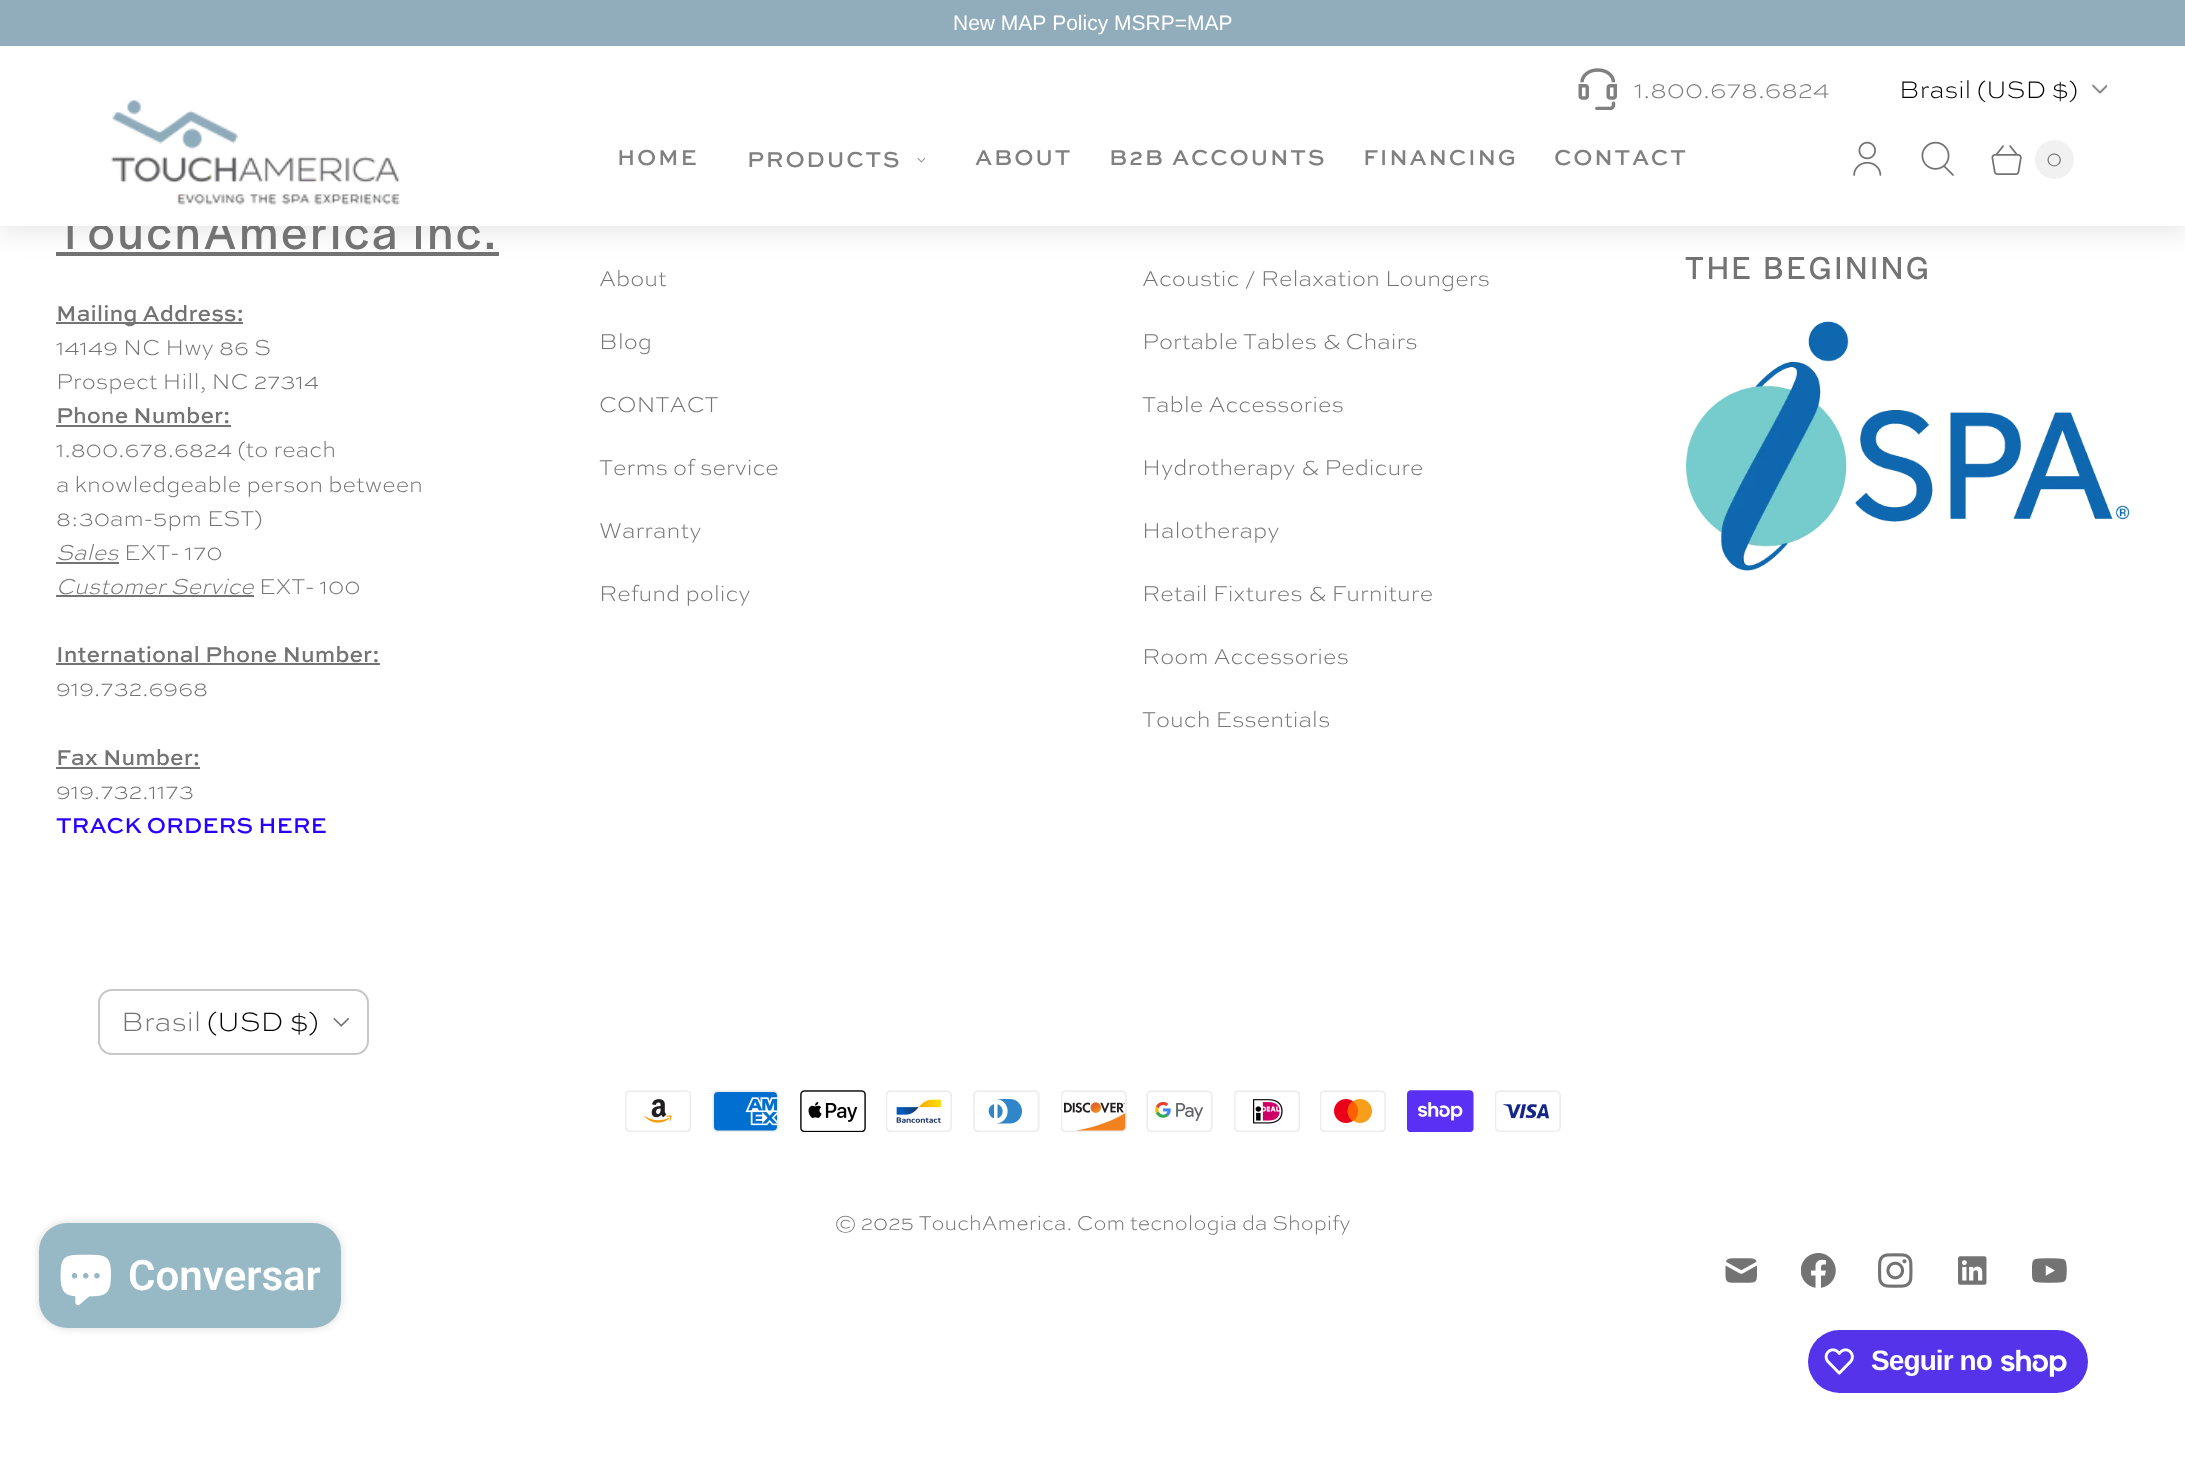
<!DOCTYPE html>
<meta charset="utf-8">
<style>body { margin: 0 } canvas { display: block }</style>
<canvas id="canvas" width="2185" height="1477"></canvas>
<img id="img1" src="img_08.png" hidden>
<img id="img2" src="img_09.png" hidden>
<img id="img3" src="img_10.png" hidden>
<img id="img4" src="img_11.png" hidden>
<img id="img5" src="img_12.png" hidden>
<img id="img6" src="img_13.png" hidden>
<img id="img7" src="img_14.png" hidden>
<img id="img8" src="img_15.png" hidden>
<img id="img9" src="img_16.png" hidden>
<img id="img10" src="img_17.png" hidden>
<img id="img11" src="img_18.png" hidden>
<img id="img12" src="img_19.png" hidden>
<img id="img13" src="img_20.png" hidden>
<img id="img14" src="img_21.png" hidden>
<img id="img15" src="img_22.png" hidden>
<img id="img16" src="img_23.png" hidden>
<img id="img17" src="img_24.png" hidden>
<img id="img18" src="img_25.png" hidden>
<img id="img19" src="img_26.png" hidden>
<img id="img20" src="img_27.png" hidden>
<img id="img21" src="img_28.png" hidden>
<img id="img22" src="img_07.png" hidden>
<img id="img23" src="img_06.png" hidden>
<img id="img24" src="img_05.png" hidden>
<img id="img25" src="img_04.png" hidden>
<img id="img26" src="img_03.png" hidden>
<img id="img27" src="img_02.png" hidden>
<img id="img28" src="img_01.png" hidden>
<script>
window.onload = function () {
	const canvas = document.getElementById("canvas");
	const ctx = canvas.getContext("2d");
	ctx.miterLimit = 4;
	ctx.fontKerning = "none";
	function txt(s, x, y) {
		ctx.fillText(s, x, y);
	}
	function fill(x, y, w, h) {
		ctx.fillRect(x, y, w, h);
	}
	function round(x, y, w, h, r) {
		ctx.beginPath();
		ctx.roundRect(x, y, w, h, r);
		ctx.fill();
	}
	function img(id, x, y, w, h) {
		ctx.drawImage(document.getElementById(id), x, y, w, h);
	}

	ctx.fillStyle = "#FFFFFF";
	fill(0, 0, 2185, 1477);
	ctx.fillStyle = "#737373";
	fill(56, 252, 443, 4);
	ctx.fillStyle = "rgba(0, 0, 0, 0.1)";
	ctx.filter = "blur(14px)";
	ctx.beginPath();
	ctx.rect(-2, 2, 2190, 229);
	ctx.fill();
	ctx.filter = "none";
	ctx.fillStyle = "#91ACBB";
	fill(0, 0, 2185, 46);
	ctx.fillStyle = "#737373";
	fill(56, 322, 187, 2);
	fill(56, 425, 175, 2);
	fill(56, 562, 63, 2);
	fill(56, 595, 198, 2);
	fill(56, 663, 324, 2);
	fill(56, 767, 144, 2);
	img("img1", 1686, 321, 444, 250);
	ctx.beginPath();
	ctx.roundRect(99, 990, 269, 64, 13);
	ctx.strokeStyle = "#C7C7C7";
	ctx.lineWidth = 2;
	ctx.stroke();
	img("img2", 333, 1018, 16, 9);
	img("img3", 625, 1090, 66, 42);
	img("img4", 712, 1090, 67, 42);
	img("img5", 800, 1090, 66, 42);
	img("img6", 886, 1090, 66, 42);
	img("img7", 973, 1090, 67, 42);
	img("img8", 1061, 1090, 66, 42);
	img("img9", 1146, 1090, 67, 42);
	img("img10", 1234, 1090, 66, 42);
	img("img11", 1320, 1090, 66, 42);
	img("img12", 1407, 1090, 67, 42);
	img("img13", 1495, 1090, 66, 42);
	img("img14", 1725, 1258, 32, 25);
	img("img15", 1801, 1253, 35, 35);
	img("img16", 1878, 1253, 35, 35);
	img("img17", 1958, 1256, 29, 29);
	img("img18", 2032, 1258, 35, 25);
	ctx.fillStyle = "#5433EB";
	round(1808, 1330, 280, 63, 31.5);
	img("img19", 1824, 1348, 30, 27);
	img("img20", 2001, 1349, 66, 28);
	ctx.fillStyle = "rgba(0, 0, 0, 0.15)";
	ctx.filter = "blur(4.5px)";
	ctx.beginPath();
	ctx.roundRect(39, 1223, 302, 105, 28);
	ctx.fill();
	ctx.filter = "none";
	ctx.fillStyle = "#96B9C5";
	round(39, 1223, 302, 105, 28);
	img("img21", 60, 1254, 51, 52);
	ctx.font = "21px Liberation Sans";
	ctx.fillStyle = "#FFFFFF";
	txt("New MAP Policy MSRP=MAP", 953, 30);
	ctx.letterSpacing = "3.5px";
	ctx.font = "50.5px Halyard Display";
	ctx.fillStyle = "#737373";
	txt("TouchAmerica", 56, 249);
	txt("Inc.", 413, 249);
	ctx.fillStyle = "#FFFFFF";
	fill(0, 46, 2185, 180);
	img("img22", 1991, 145, 31, 30);
	img("img23", 1921, 141, 33, 35);
	img("img24", 1853, 141, 29, 35);
	ctx.fillStyle = "#F1F1F1";
	ctx.beginPath();
	ctx.arc(2054.5, 159.5, 19.5, 0, Math.PI * 2);
	ctx.fill();
	ctx.letterSpacing = "0px";
	ctx.font = "300 22.75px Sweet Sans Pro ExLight";
	ctx.fillStyle = "#737373";
	txt("0", 2046, 166);
	ctx.letterSpacing = "1.75px";
	ctx.font = "500 22.75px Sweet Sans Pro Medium";
	ctx.fillStyle = "#808080";
	txt("CONTACT", 1554, 165);
	txt("FINANCING", 1363, 165);
	txt("B2B ACCOUNTS", 1109, 165);
	txt("ABOUT", 975, 165);
	img("img25", 917, 158, 9, 5);
	txt("PRODUCTS", 747, 167);
	txt("HOME", 617, 165);
	img("img26", 111, 99, 289, 106);
	img("img27", 2092, 84, 15, 11);
	ctx.letterSpacing = "0px";
	ctx.font = "300 25.25px Sweet Sans Pro ExLight";
	ctx.fillStyle = "#000000";
	txt("Brasil (USD $)", 1899, 98);
	img("img28", 1578, 68, 39, 42);
	ctx.fillStyle = "#808080";
	txt("1.800.678.6824", 1634, 98);
	ctx.font = "500 22.75px Sweet Sans Pro Medium";
	ctx.fillStyle = "#737373";
	txt("Mailing Address:", 56, 321);
	ctx.font = "300 22.75px Sweet Sans Pro ExLight";
	txt("14149 NC Hwy 86 S", 56, 355);
	txt("Prospect Hill, NC 27314", 56, 389);
	ctx.font = "500 22.75px Sweet Sans Pro Medium";
	txt("Phone Number:", 56, 423);
	ctx.font = "300 22.75px Sweet Sans Pro ExLight";
	txt("1.800.678.6824 (to reach", 56, 457);
	txt("a knowledgeable person between", 56, 492);
	txt("8:30am-5pm EST)", 56, 526);
	ctx.font = "italic 300 22.75px Sweet Sans Pro ExLight";
	txt("Sales", 56, 560);
	ctx.font = "300 22.75px Sweet Sans Pro ExLight";
	txt("EXT- 170", 124, 560);
	ctx.font = "italic 300 22.75px Sweet Sans Pro ExLight";
	txt("Customer Service", 56, 594);
	ctx.font = "300 22.75px Sweet Sans Pro ExLight";
	txt("EXT- 100", 259, 594);
	ctx.font = "500 22.75px Sweet Sans Pro Medium";
	txt("International Phone Number:", 56, 662);
	ctx.font = "300 22.75px Sweet Sans Pro ExLight";
	txt("919.732.6968", 56, 696);
	ctx.font = "500 22.75px Sweet Sans Pro Medium";
	txt("Fax Number:", 56, 765);
	ctx.font = "300 22.75px Sweet Sans Pro ExLight";
	txt("919.732.1173", 56, 799);
	ctx.font = "500 22.75px Sweet Sans Pro Medium";
	ctx.fillStyle = "#2B00FF";
	txt("TRACK ORDERS HERE ", 56, 833);
	ctx.font = "300 22.75px Sweet Sans Pro ExLight";
	ctx.fillStyle = "#737373";
	txt("About", 599, 286);
	txt("Blog", 599, 349);
	txt("CONTACT", 599, 412);
	txt("Terms of service", 599, 475);
	txt("Warranty", 599, 538);
	txt("Refund policy", 599, 601);
	txt("Acoustic / Relaxation Loungers", 1142, 286);
	txt("Portable Tables & Chairs", 1142, 349);
	txt("Table Accessories", 1142, 412);
	txt("Hydrotherapy & Pedicure", 1142, 475);
	txt("Halotherapy", 1142, 538);
	txt("Retail Fixtures & Furniture", 1142, 601);
	txt("Room Accessories", 1142, 664);
	txt("Touch Essentials", 1142, 727);
	ctx.letterSpacing = "3.5px";
	ctx.font = "33px Halyard Display";
	txt("THE BEGINING", 1685, 279);
	ctx.letterSpacing = "0px";
	ctx.font = "300 28px Sweet Sans Pro ExLight";
	txt("Brasil", 121, 1031);
	ctx.fillStyle = "#000000";
	txt("(USD $)", 207, 1031);
	ctx.font = "300 21px Sweet Sans Pro ExLight";
	ctx.fillStyle = "#737373";
	txt("© 2025 TouchAmerica. Com tecnologia da Shopify", 835, 1230);
	ctx.letterSpacing = "-0.9px";
	ctx.font = "bold 28px Liberation Sans";
	ctx.fillStyle = "#FFFFFF";
	txt("Seguir no", 1871, 1370);
	ctx.letterSpacing = "0px";
	ctx.font = "600 42px Roboto";
	txt("Conversar", 128, 1290);
};
</script>
